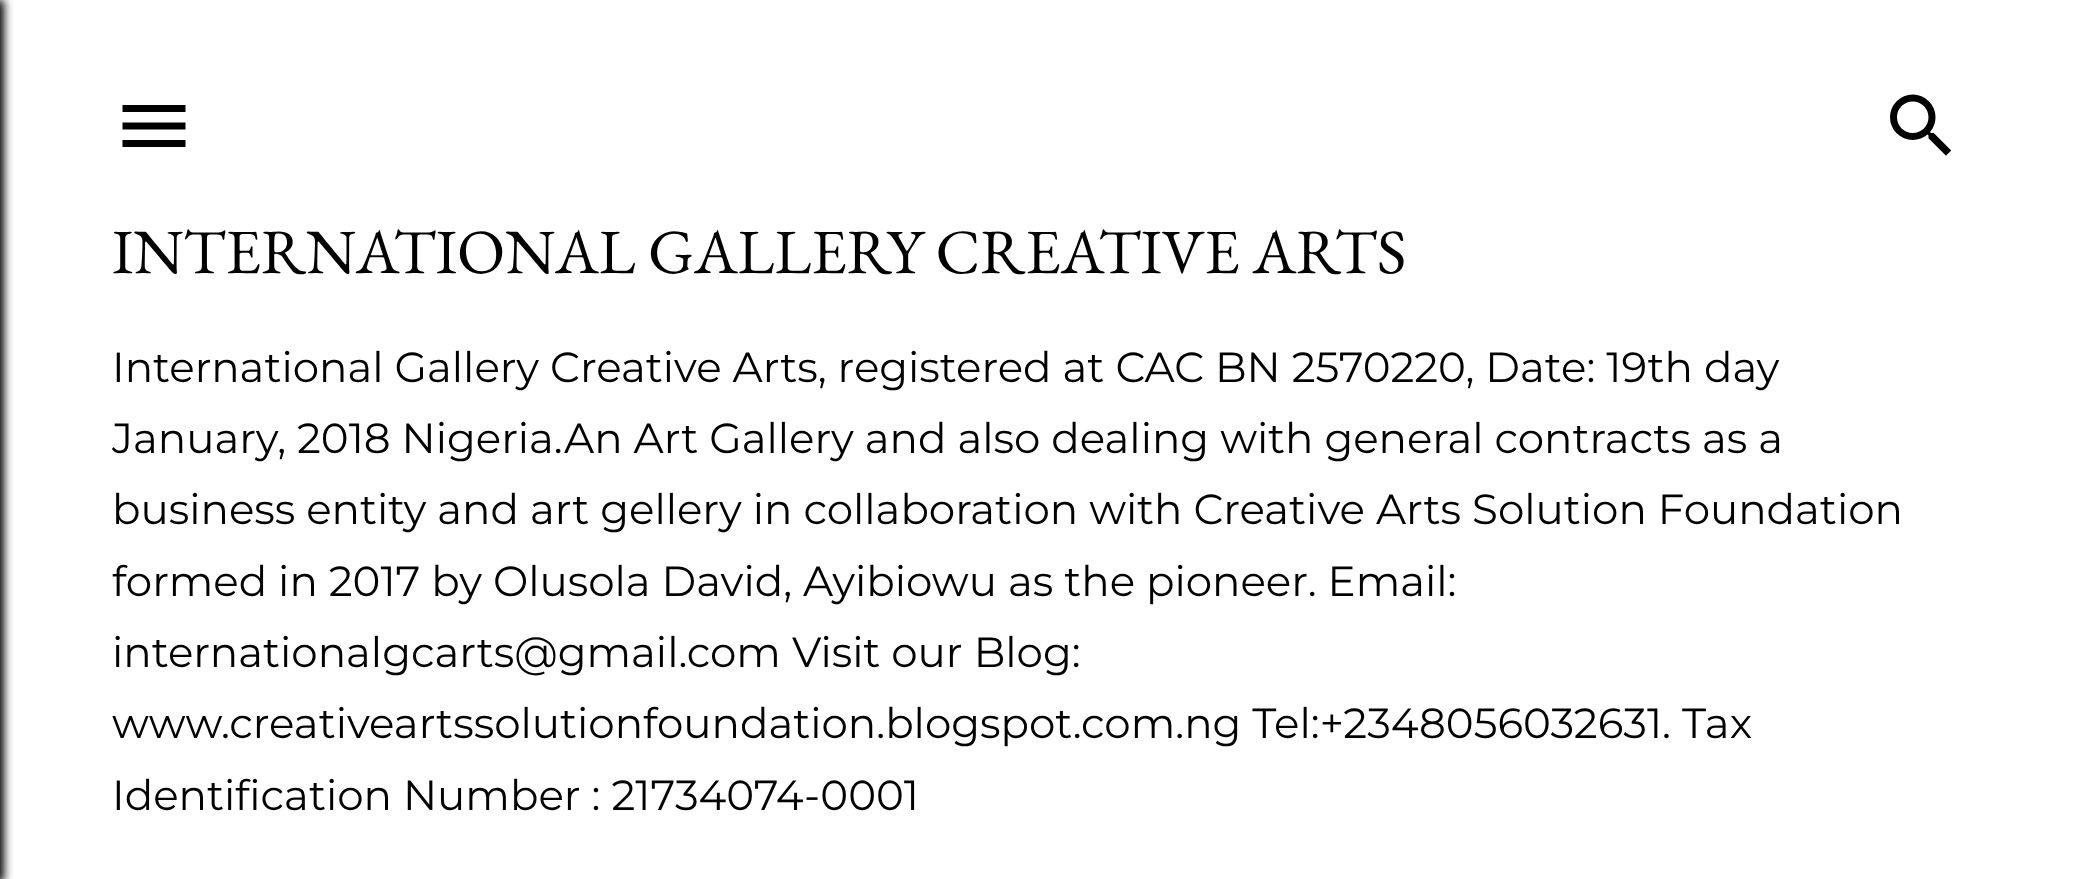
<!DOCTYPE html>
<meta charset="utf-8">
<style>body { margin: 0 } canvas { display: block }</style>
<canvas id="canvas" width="2074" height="879"></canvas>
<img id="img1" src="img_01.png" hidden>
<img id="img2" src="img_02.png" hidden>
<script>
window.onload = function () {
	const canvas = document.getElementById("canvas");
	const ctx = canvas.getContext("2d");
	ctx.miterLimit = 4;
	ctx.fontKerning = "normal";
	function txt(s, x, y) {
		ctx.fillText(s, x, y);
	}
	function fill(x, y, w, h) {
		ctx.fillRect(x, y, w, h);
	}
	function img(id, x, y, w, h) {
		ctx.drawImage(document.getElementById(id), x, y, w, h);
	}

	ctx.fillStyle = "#FFFFFF";
	fill(0, 0, 2074, 879);
	ctx.fillStyle = "#000000";
	ctx.filter = "blur(5px)";
	ctx.beginPath();
	ctx.rect(-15, 0, 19, 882);
	ctx.fill();
	ctx.filter = "none";
	img("img1", 122, 105, 64, 42);
	img("img2", 1890, 94, 62, 62);
	ctx.font = "63px EB Garamond";
	txt("INTERNATIONAL GALLERY CREATIVE ARTS", 112, 273);
	ctx.font = "42px Montserrat";
	txt("International Gallery Creative Arts, registered at CAC BN 2570220, Date: 19th day", 112, 382);
	txt("January, 2018 Nigeria.An Art Gallery and also dealing with general contracts as a", 112, 453);
	txt("business entity and art gellery in collaboration with Creative Arts Solution Foundation", 112, 524);
	txt("formed in 2017 by Olusola David, Ayibiowu as the pioneer. Email:", 112, 596);
	txt("internationalgcarts@gmail.com Visit our Blog:", 112, 667);
	txt("www.creativeartssolutionfoundation.blogspot.com.ng Tel:+2348056032631. Tax", 112, 738);
	txt("Identification Number : 21734074-0001", 112, 810);
};
</script>
